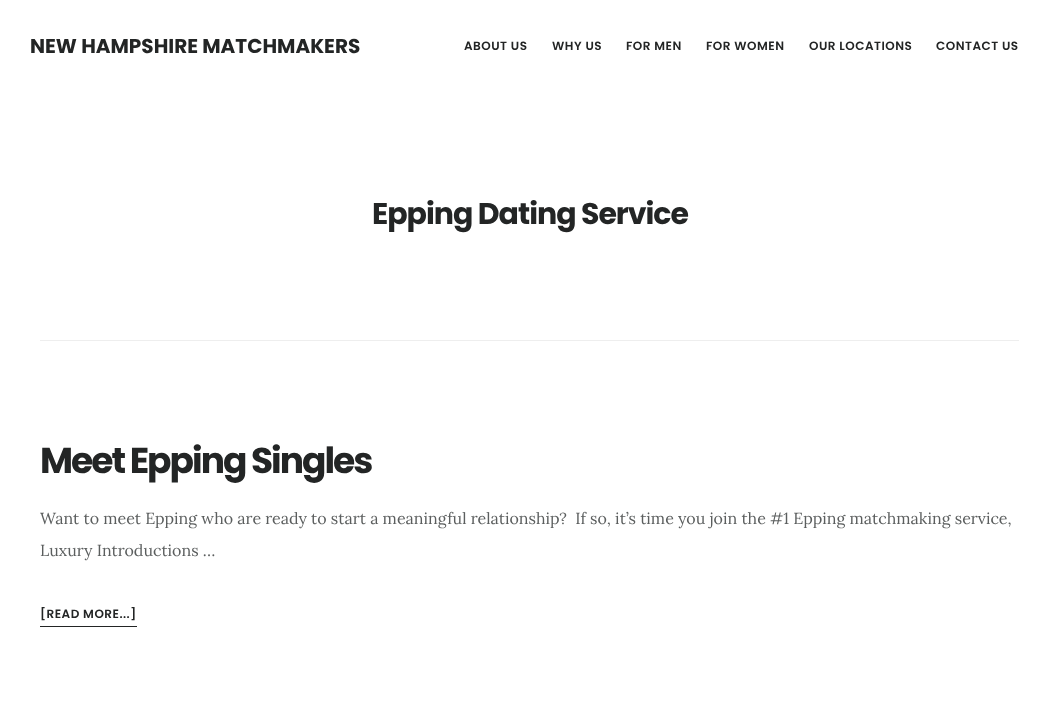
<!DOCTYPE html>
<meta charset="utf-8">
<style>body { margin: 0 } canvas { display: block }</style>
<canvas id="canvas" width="1059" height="706"></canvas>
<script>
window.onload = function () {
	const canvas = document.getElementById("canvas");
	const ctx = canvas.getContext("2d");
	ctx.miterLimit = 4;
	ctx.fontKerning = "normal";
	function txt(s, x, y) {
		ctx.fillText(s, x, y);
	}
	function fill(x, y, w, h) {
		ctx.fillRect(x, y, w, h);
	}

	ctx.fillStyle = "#FFFFFF";
	fill(0, 0, 1059, 706);
	ctx.fillStyle = "#EEEEEE";
	fill(40, 340, 979, 1);
	ctx.fillStyle = "#232525";
	fill(40, 626, 97, 1);
	ctx.font = "bold 20px Poppins";
	txt("NEW HAMPSHIRE MATCHMAKERS", 30, 53);
	ctx.letterSpacing = "0.5px";
	ctx.font = "600 12px Poppins";
	txt("ABOUT US", 464, 50);
	txt("WHY US", 552, 50);
	txt("FOR MEN", 626, 50);
	txt("FOR WOMEN", 706, 50);
	txt("OUR LOCATIONS", 809, 50);
	txt("CONTACT US", 936, 50);
	ctx.letterSpacing = "-1px";
	ctx.font = "bold 30px Poppins";
	txt("Epping Dating Service", 372, 224);
	ctx.letterSpacing = "-2px";
	ctx.font = "bold 36px Poppins";
	txt("Meet Epping Singles", 40, 473);
	ctx.letterSpacing = "0px";
	ctx.font = "16px Lora";
	ctx.fillStyle = "#5B5E5E";
	txt("Want to meet Epping who are ready to start a meaningful relationship?  If so, it’s time you join the #1 Epping matchmaking service,", 40, 524);
	txt("Luxury Introductions …", 40, 556);
	ctx.letterSpacing = "0.5px";
	ctx.font = "600 12px Poppins";
	ctx.fillStyle = "#232525";
	txt("[READ MORE...]", 40, 618);
};
</script>
